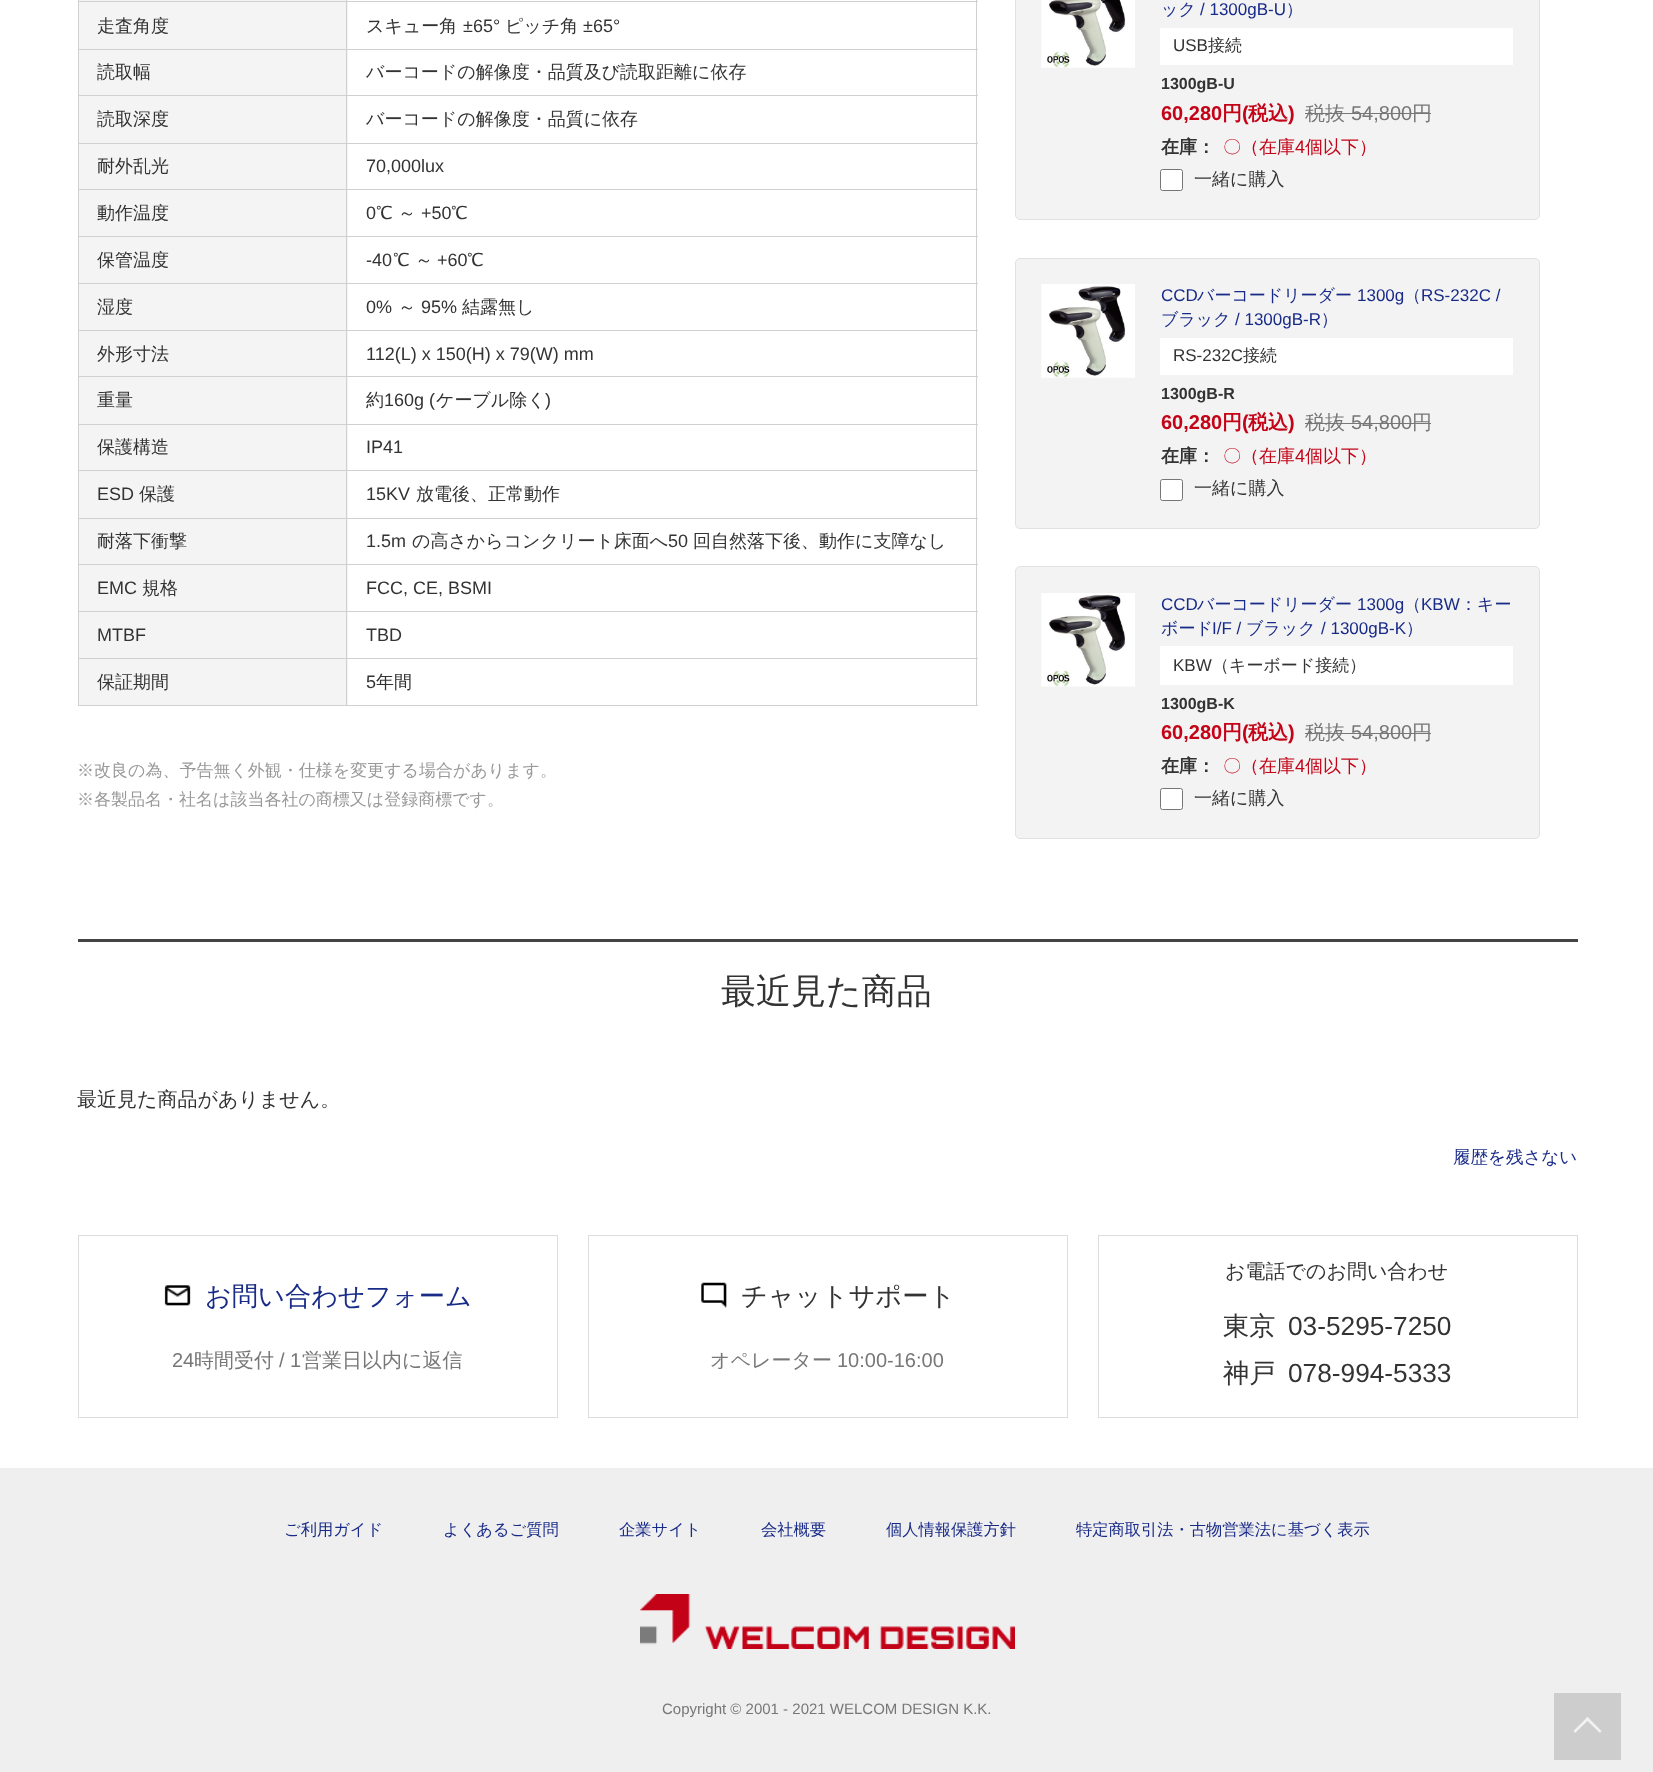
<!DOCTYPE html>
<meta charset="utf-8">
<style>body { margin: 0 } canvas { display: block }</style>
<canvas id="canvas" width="1653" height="1772"></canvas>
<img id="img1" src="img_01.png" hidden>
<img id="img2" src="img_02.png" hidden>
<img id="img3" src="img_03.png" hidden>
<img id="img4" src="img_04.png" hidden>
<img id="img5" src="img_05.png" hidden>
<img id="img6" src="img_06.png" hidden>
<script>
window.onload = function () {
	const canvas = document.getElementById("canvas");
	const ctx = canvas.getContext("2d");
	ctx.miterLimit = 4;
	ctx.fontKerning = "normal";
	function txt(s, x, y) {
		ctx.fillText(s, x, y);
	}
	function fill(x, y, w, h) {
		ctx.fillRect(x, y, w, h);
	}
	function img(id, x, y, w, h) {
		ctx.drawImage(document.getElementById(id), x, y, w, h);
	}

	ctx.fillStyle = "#FFFFFF";
	fill(0, 0, 1653, 1772);
	ctx.fillStyle = "#D0D0D0";
	fill(976, 0, 1, 706);
	fill(78, 705, 900, 1);
	ctx.fillStyle = "#F4F4F4";
	fill(78, 0, 270, 3);
	ctx.fillStyle = "#D0D0D0";
	fill(78, 0, 1, 706);
	ctx.fillStyle = "#F4F4F4";
	fill(79, 3, 269, 46);
	fill(79, 50, 269, 45);
	fill(79, 96, 269, 47);
	fill(79, 144, 269, 45);
	fill(79, 190, 269, 46);
	fill(79, 237, 269, 46);
	fill(79, 284, 269, 46);
	fill(79, 331, 269, 93);
	fill(79, 425, 269, 45);
	fill(79, 471, 269, 47);
	fill(79, 519, 269, 45);
	fill(79, 565, 269, 46);
	fill(79, 612, 269, 46);
	fill(79, 659, 269, 46);
	ctx.fillStyle = "#D0D0D0";
	fill(346, 658, 1, 48);
	fill(346, 658, 632, 1);
	fill(346, 611, 1, 48);
	fill(346, 611, 632, 1);
	fill(346, 564, 1, 49);
	fill(346, 564, 632, 1);
	fill(346, 518, 1, 47);
	fill(346, 518, 632, 1);
	fill(346, 470, 1, 49);
	fill(346, 470, 632, 1);
	fill(346, 424, 1, 47);
	fill(346, 424, 632, 1);
	fill(346, 376, 1, 49);
	fill(346, 376, 632, 1);
	fill(346, 330, 1, 48);
	fill(346, 330, 632, 1);
	fill(346, 283, 1, 48);
	fill(346, 283, 632, 1);
	fill(346, 236, 1, 48);
	fill(346, 236, 632, 1);
	fill(346, 189, 1, 49);
	fill(346, 189, 632, 1);
	fill(346, 143, 1, 47);
	fill(346, 143, 632, 1);
	fill(346, 95, 1, 49);
	fill(346, 95, 632, 1);
	fill(346, 49, 1, 47);
	fill(346, 49, 632, 1);
	fill(346, 1, 1, 49);
	fill(346, 1, 632, 1);
	fill(346, 0, 1, 3);
	fill(78, 1, 270, 1);
	fill(78, 49, 270, 1);
	fill(78, 95, 270, 1);
	fill(78, 143, 270, 1);
	fill(78, 189, 270, 1);
	fill(78, 236, 270, 1);
	fill(78, 283, 270, 1);
	fill(78, 330, 270, 1);
	fill(78, 376, 270, 1);
	fill(78, 424, 270, 1);
	fill(78, 470, 270, 1);
	fill(78, 518, 270, 1);
	fill(78, 564, 270, 1);
	fill(78, 611, 270, 1);
	fill(78, 658, 270, 1);
	ctx.fillStyle = "#F3F3F3";
	ctx.beginPath();
	ctx.roundRect(1015.5, -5.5, 524, 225, 4.5);
	ctx.fill();
	ctx.strokeStyle = "#E1E1E1";
	ctx.stroke();
	img("img1", 1041, 0, 94, 68);
	ctx.fillStyle = "#FFFFFF";
	fill(1160, 28, 353, 37);
	ctx.fillStyle = "#777777";
	fill(1305, 113, 126, 1);
	ctx.fillStyle = "#FFFFFF";
	ctx.beginPath();
	ctx.roundRect(1160.5, 169.5, 22, 21, 2);
	ctx.fill();
	ctx.strokeStyle = "#767676";
	ctx.stroke();
	ctx.fillStyle = "#F3F3F3";
	ctx.beginPath();
	ctx.roundRect(1015.5, 258.5, 524, 270, 4.5);
	ctx.fill();
	ctx.strokeStyle = "#E1E1E1";
	ctx.stroke();
	img("img2", 1041, 284, 94, 94);
	ctx.fillStyle = "#FFFFFF";
	fill(1160, 338, 353, 37);
	ctx.fillStyle = "#777777";
	fill(1305, 423, 126, 1);
	ctx.fillStyle = "#FFFFFF";
	ctx.beginPath();
	ctx.roundRect(1160.5, 479.5, 22, 21, 2);
	ctx.fill();
	ctx.strokeStyle = "#767676";
	ctx.stroke();
	ctx.fillStyle = "#F3F3F3";
	ctx.beginPath();
	ctx.roundRect(1015.5, 566.5, 524, 272, 4.5);
	ctx.fill();
	ctx.strokeStyle = "#E1E1E1";
	ctx.stroke();
	img("img3", 1041, 593, 94, 94);
	ctx.fillStyle = "#FFFFFF";
	fill(1160, 646, 353, 39);
	ctx.fillStyle = "#777777";
	fill(1305, 733, 126, 1);
	ctx.fillStyle = "#FFFFFF";
	ctx.beginPath();
	ctx.roundRect(1160.5, 788.5, 22, 21, 2);
	ctx.fill();
	ctx.strokeStyle = "#767676";
	ctx.stroke();
	ctx.fillStyle = "#444444";
	fill(78, 939, 1500, 3);
	ctx.strokeStyle = "#DDDDDD";
	ctx.strokeRect(78.5, 1235.5, 479, 182);
	img("img4", 164, 1285, 27, 21);
	ctx.strokeRect(588.5, 1235.5, 479, 182);
	img("img5", 701, 1282, 26, 26);
	ctx.strokeRect(1098.5, 1235.5, 479, 182);
	ctx.fillStyle = "#EFEFEF";
	fill(0, 1468, 1653, 304);
	img("img6", 640, 1594, 375, 55);
	ctx.fillStyle = "#CDCDCD";
	fill(1554, 1693, 67, 67);
	ctx.fillStyle = "#F2F2F2";
	ctx.beginPath();
	ctx.moveTo(1573.5, 1731);
	ctx.lineTo(1587.5, 1717);
	ctx.lineTo(1589.5, 1719);
	ctx.lineTo(1575, 1733);
	ctx.closePath();
	ctx.fill();
	ctx.beginPath();
	ctx.moveTo(1585.5, 1719);
	ctx.lineTo(1587.5, 1717);
	ctx.lineTo(1601.5, 1731);
	ctx.lineTo(1600, 1733);
	ctx.closePath();
	ctx.fill();
	ctx.font = "500 18px WenQuanYi Zen Hei";
	ctx.fillStyle = "#333333";
	txt("走査角度", 97, 32);
	txt("スキュー角", 366, 32);
	ctx.font = "18px Liberation Sans";
	txt("±65°", 463, 32);
	ctx.font = "500 18px WenQuanYi Zen Hei";
	txt("ピッチ角", 505, 32);
	ctx.font = "18px Liberation Sans";
	txt("±65°", 583, 32);
	ctx.font = "500 18px WenQuanYi Zen Hei";
	txt("読取幅", 97, 78);
	txt("バーコードの解像度・品質及び読取距離に依存", 366, 78);
	txt("読取深度", 97, 125);
	txt("バーコードの解像度・品質に依存", 366, 125);
	txt("耐外乱光", 97, 172);
	ctx.font = "18px Liberation Sans";
	txt("70,000lux", 366, 172);
	ctx.font = "500 18px WenQuanYi Zen Hei";
	txt("動作温度", 97, 219);
	ctx.font = "18px Liberation Sans";
	txt("0", 366, 219);
	ctx.font = "500 18px WenQuanYi Zen Hei";
	txt("℃ ～", 376, 219);
	ctx.font = "18px Liberation Sans";
	txt("+50", 421, 219);
	ctx.font = "500 18px WenQuanYi Zen Hei";
	txt("℃", 451, 219);
	txt("保管温度", 97, 266);
	ctx.font = "18px Liberation Sans";
	txt("-40", 366, 266);
	ctx.font = "500 18px WenQuanYi Zen Hei";
	txt("℃ ～", 393, 266);
	ctx.font = "18px Liberation Sans";
	txt("+60", 437, 266);
	ctx.font = "500 18px WenQuanYi Zen Hei";
	txt("℃", 467, 266);
	txt("湿度", 97, 313);
	ctx.font = "18px Liberation Sans";
	txt("0%", 366, 313);
	ctx.font = "500 18px WenQuanYi Zen Hei";
	txt("～", 398, 313);
	ctx.font = "18px Liberation Sans";
	txt("95%", 421, 313);
	ctx.font = "500 18px WenQuanYi Zen Hei";
	txt("結露無し", 462, 313);
	txt("外形寸法", 97, 360);
	ctx.font = "18px Liberation Sans";
	txt("112(L) x 150(H) x 79(W) mm", 366, 360);
	ctx.font = "500 18px WenQuanYi Zen Hei";
	txt("重量", 97, 406);
	txt("約", 366, 406);
	ctx.font = "18px Liberation Sans";
	txt("160g (", 384, 406);
	ctx.font = "500 18px WenQuanYi Zen Hei";
	txt("ケーブル除く", 436, 406);
	ctx.font = "18px Liberation Sans";
	txt(")", 545, 406);
	ctx.font = "500 18px WenQuanYi Zen Hei";
	txt("保護構造", 97, 453);
	ctx.font = "18px Liberation Sans";
	txt("IP41", 366, 453);
	txt("ESD", 97, 500);
	ctx.font = "500 18px WenQuanYi Zen Hei";
	txt("保護", 139, 500);
	ctx.font = "18px Liberation Sans";
	txt("15KV", 366, 500);
	ctx.font = "500 18px WenQuanYi Zen Hei";
	txt("放電後、正常動作", 416, 500);
	txt("耐落下衝撃", 97, 547);
	ctx.font = "18px Liberation Sans";
	txt("1.5m", 366, 547);
	ctx.font = "500 18px WenQuanYi Zen Hei";
	txt("の高さからコンクリート床面へ", 412, 547);
	ctx.font = "18px Liberation Sans";
	txt("50", 668, 547);
	ctx.font = "500 18px WenQuanYi Zen Hei";
	txt("回自然落下後、動作に支障なし", 693, 547);
	ctx.font = "18px Liberation Sans";
	txt("EMC", 97, 594);
	ctx.font = "500 18px WenQuanYi Zen Hei";
	txt("規格", 142, 594);
	ctx.font = "18px Liberation Sans";
	txt("FCC, CE, BSMI", 366, 594);
	txt("MTBF", 97, 641);
	txt("TBD", 366, 641);
	ctx.font = "500 18px WenQuanYi Zen Hei";
	txt("保証期間", 97, 688);
	ctx.font = "18px Liberation Sans";
	txt("5", 366, 688);
	ctx.font = "500 18px WenQuanYi Zen Hei";
	txt("年間", 376, 688);
	ctx.font = "500 17px WenQuanYi Zen Hei";
	ctx.fillStyle = "#999999";
	txt("※改良の為、予告無く外観・仕様を変更する場合があります。", 77, 776);
	txt("※各製品名・社名は該当各社の商標又は登録商標です。", 77, 805);
	ctx.fillStyle = "#192B88";
	txt("ック", 1161, 15);
	ctx.font = "17px Liberation Sans";
	txt("/ 1300gB-U", 1200, 15);
	ctx.font = "500 17px WenQuanYi Zen Hei";
	txt("）", 1286, 15);
	ctx.font = "17px Liberation Sans";
	ctx.fillStyle = "#333333";
	txt("USB", 1173, 51);
	ctx.font = "500 17px WenQuanYi Zen Hei";
	txt("接続", 1208, 51);
	ctx.font = "bold 16px Liberation Sans";
	txt("1300gB-U", 1161, 89);
	ctx.font = "bold 20px Liberation Sans";
	ctx.fillStyle = "#C40317";
	txt("60,280", 1161, 120);
	ctx.font = "bold 20px WenQuanYi Zen Hei";
	txt("円", 1222, 120);
	ctx.font = "bold 20px Liberation Sans";
	txt("(", 1242, 120);
	ctx.font = "bold 20px WenQuanYi Zen Hei";
	txt("税込", 1248, 120);
	ctx.font = "bold 20px Liberation Sans";
	txt(")", 1288, 120);
	ctx.font = "500 20px WenQuanYi Zen Hei";
	ctx.fillStyle = "#777777";
	txt("税抜", 1305, 120);
	ctx.font = "20px Liberation Sans";
	txt("54,800", 1351, 120);
	ctx.font = "500 20px WenQuanYi Zen Hei";
	txt("円", 1412, 120);
	ctx.font = "bold 18px WenQuanYi Zen Hei";
	ctx.fillStyle = "#333333";
	txt("在庫：", 1161, 153);
	ctx.font = "500 18px WenQuanYi Zen Hei";
	ctx.fillStyle = "#C40317";
	txt("〇（在庫", 1223, 153);
	ctx.font = "18px Liberation Sans";
	txt("4", 1295, 153);
	ctx.font = "500 18px WenQuanYi Zen Hei";
	txt("個以下）", 1305, 153);
	ctx.fillStyle = "#333333";
	txt("一緒に購入", 1194, 185);
	ctx.font = "17px Liberation Sans";
	ctx.fillStyle = "#192B88";
	txt("CCD", 1161, 301);
	ctx.font = "500 17px WenQuanYi Zen Hei";
	txt("バーコードリーダー", 1197, 301);
	ctx.font = "17px Liberation Sans";
	txt("1300g", 1357, 301);
	ctx.font = "500 17px WenQuanYi Zen Hei";
	txt("（", 1404, 301);
	ctx.font = "17px Liberation Sans";
	txt("RS-232C /", 1421, 301);
	ctx.font = "500 17px WenQuanYi Zen Hei";
	txt("ブラック", 1161, 325);
	ctx.font = "17px Liberation Sans";
	txt("/ 1300gB-R", 1235, 325);
	ctx.font = "500 17px WenQuanYi Zen Hei";
	txt("）", 1321, 325);
	ctx.font = "17px Liberation Sans";
	ctx.fillStyle = "#333333";
	txt("RS-232C", 1173, 361);
	ctx.font = "500 17px WenQuanYi Zen Hei";
	txt("接続", 1243, 361);
	ctx.font = "bold 16px Liberation Sans";
	txt("1300gB-R", 1161, 399);
	ctx.font = "bold 20px Liberation Sans";
	ctx.fillStyle = "#C40317";
	txt("60,280", 1161, 429);
	ctx.font = "bold 20px WenQuanYi Zen Hei";
	txt("円", 1222, 429);
	ctx.font = "bold 20px Liberation Sans";
	txt("(", 1242, 429);
	ctx.font = "bold 20px WenQuanYi Zen Hei";
	txt("税込", 1248, 429);
	ctx.font = "bold 20px Liberation Sans";
	txt(")", 1288, 429);
	ctx.font = "500 20px WenQuanYi Zen Hei";
	ctx.fillStyle = "#777777";
	txt("税抜", 1305, 429);
	ctx.font = "20px Liberation Sans";
	txt("54,800", 1351, 429);
	ctx.font = "500 20px WenQuanYi Zen Hei";
	txt("円", 1412, 429);
	ctx.font = "bold 18px WenQuanYi Zen Hei";
	ctx.fillStyle = "#333333";
	txt("在庫：", 1161, 462);
	ctx.font = "500 18px WenQuanYi Zen Hei";
	ctx.fillStyle = "#C40317";
	txt("〇（在庫", 1223, 462);
	ctx.font = "18px Liberation Sans";
	txt("4", 1295, 462);
	ctx.font = "500 18px WenQuanYi Zen Hei";
	txt("個以下）", 1305, 462);
	ctx.fillStyle = "#333333";
	txt("一緒に購入", 1194, 494);
	ctx.font = "17px Liberation Sans";
	ctx.fillStyle = "#192B88";
	txt("CCD", 1161, 610);
	ctx.font = "500 17px WenQuanYi Zen Hei";
	txt("バーコードリーダー", 1197, 610);
	ctx.font = "17px Liberation Sans";
	txt("1300g", 1357, 610);
	ctx.font = "500 17px WenQuanYi Zen Hei";
	txt("（", 1404, 610);
	ctx.font = "17px Liberation Sans";
	txt("KBW", 1421, 610);
	ctx.font = "500 17px WenQuanYi Zen Hei";
	txt("：キー", 1460, 610);
	txt("ボード", 1161, 634);
	ctx.font = "17px Liberation Sans";
	txt("I/F /", 1212, 634);
	ctx.font = "500 17px WenQuanYi Zen Hei";
	txt("ブラック", 1246, 634);
	ctx.font = "17px Liberation Sans";
	txt("/ 1300gB-K", 1321, 634);
	ctx.font = "500 17px WenQuanYi Zen Hei";
	txt("）", 1406, 634);
	ctx.font = "17px Liberation Sans";
	ctx.fillStyle = "#333333";
	txt("KBW", 1173, 671);
	ctx.font = "500 17px WenQuanYi Zen Hei";
	txt("（キーボード接続）", 1212, 671);
	ctx.font = "bold 16px Liberation Sans";
	txt("1300gB-K", 1161, 709);
	ctx.font = "bold 20px Liberation Sans";
	ctx.fillStyle = "#C40317";
	txt("60,280", 1161, 739);
	ctx.font = "bold 20px WenQuanYi Zen Hei";
	txt("円", 1222, 739);
	ctx.font = "bold 20px Liberation Sans";
	txt("(", 1242, 739);
	ctx.font = "bold 20px WenQuanYi Zen Hei";
	txt("税込", 1248, 739);
	ctx.font = "bold 20px Liberation Sans";
	txt(")", 1288, 739);
	ctx.font = "500 20px WenQuanYi Zen Hei";
	ctx.fillStyle = "#777777";
	txt("税抜", 1305, 739);
	ctx.font = "20px Liberation Sans";
	txt("54,800", 1351, 739);
	ctx.font = "500 20px WenQuanYi Zen Hei";
	txt("円", 1412, 739);
	ctx.font = "bold 18px WenQuanYi Zen Hei";
	ctx.fillStyle = "#333333";
	txt("在庫：", 1161, 772);
	ctx.font = "500 18px WenQuanYi Zen Hei";
	ctx.fillStyle = "#C40317";
	txt("〇（在庫", 1223, 772);
	ctx.font = "18px Liberation Sans";
	txt("4", 1295, 772);
	ctx.font = "500 18px WenQuanYi Zen Hei";
	txt("個以下）", 1305, 772);
	ctx.fillStyle = "#333333";
	txt("一緒に購入", 1194, 804);
	ctx.font = "500 35px WenQuanYi Zen Hei";
	txt("最近見た商品", 721, 1003);
	ctx.font = "500 20px WenQuanYi Zen Hei";
	txt("最近見た商品がありません。", 77, 1106);
	ctx.font = "500 17.5px WenQuanYi Zen Hei";
	ctx.fillStyle = "#192B88";
	txt("履歴を残さない", 1453, 1163);
	ctx.font = "500 26.25px WenQuanYi Zen Hei";
	txt("お問い合わせフォーム", 205, 1305);
	ctx.font = "20px Liberation Sans";
	ctx.fillStyle = "#777777";
	txt("24", 172, 1367);
	ctx.font = "500 20px WenQuanYi Zen Hei";
	txt("時間受付", 194, 1367);
	ctx.font = "20px Liberation Sans";
	txt("/ 1", 279, 1367);
	ctx.font = "500 20px WenQuanYi Zen Hei";
	txt("営業日以内に返信", 302, 1367);
	ctx.font = "500 26.25px WenQuanYi Zen Hei";
	ctx.fillStyle = "#333333";
	txt("チャットサポート", 741, 1305);
	ctx.font = "500 20px WenQuanYi Zen Hei";
	ctx.fillStyle = "#777777";
	txt("オペレーター", 710, 1367);
	ctx.font = "20px Liberation Sans";
	txt("10:00-16:00", 837, 1367);
	ctx.font = "500 20px WenQuanYi Zen Hei";
	ctx.fillStyle = "#333333";
	txt("お電話でのお問い合わせ", 1225, 1278);
	ctx.font = "500 26.25px WenQuanYi Zen Hei";
	txt("東京", 1223, 1335);
	ctx.font = "26.25px Liberation Sans";
	txt("03-5295-7250", 1288, 1335);
	ctx.font = "500 26.25px WenQuanYi Zen Hei";
	txt("神戸", 1223, 1382);
	ctx.font = "26.25px Liberation Sans";
	txt("078-994-5333", 1288, 1382);
	ctx.font = "500 16.25px WenQuanYi Zen Hei";
	ctx.fillStyle = "#192B88";
	txt("ご利用ガイド", 284, 1535);
	txt("よくあるご質問", 443, 1535);
	txt("企業サイト", 619, 1535);
	txt("会社概要", 761, 1535);
	txt("個人情報保護方針", 886, 1535);
	txt("特定商取引法・古物営業法に基づく表示", 1076, 1535);
	ctx.font = "15px Liberation Sans";
	ctx.fillStyle = "#777777";
	txt("Copyright © 2001 - 2021 WELCOM DESIGN K.K.", 662, 1714);
};
</script>
